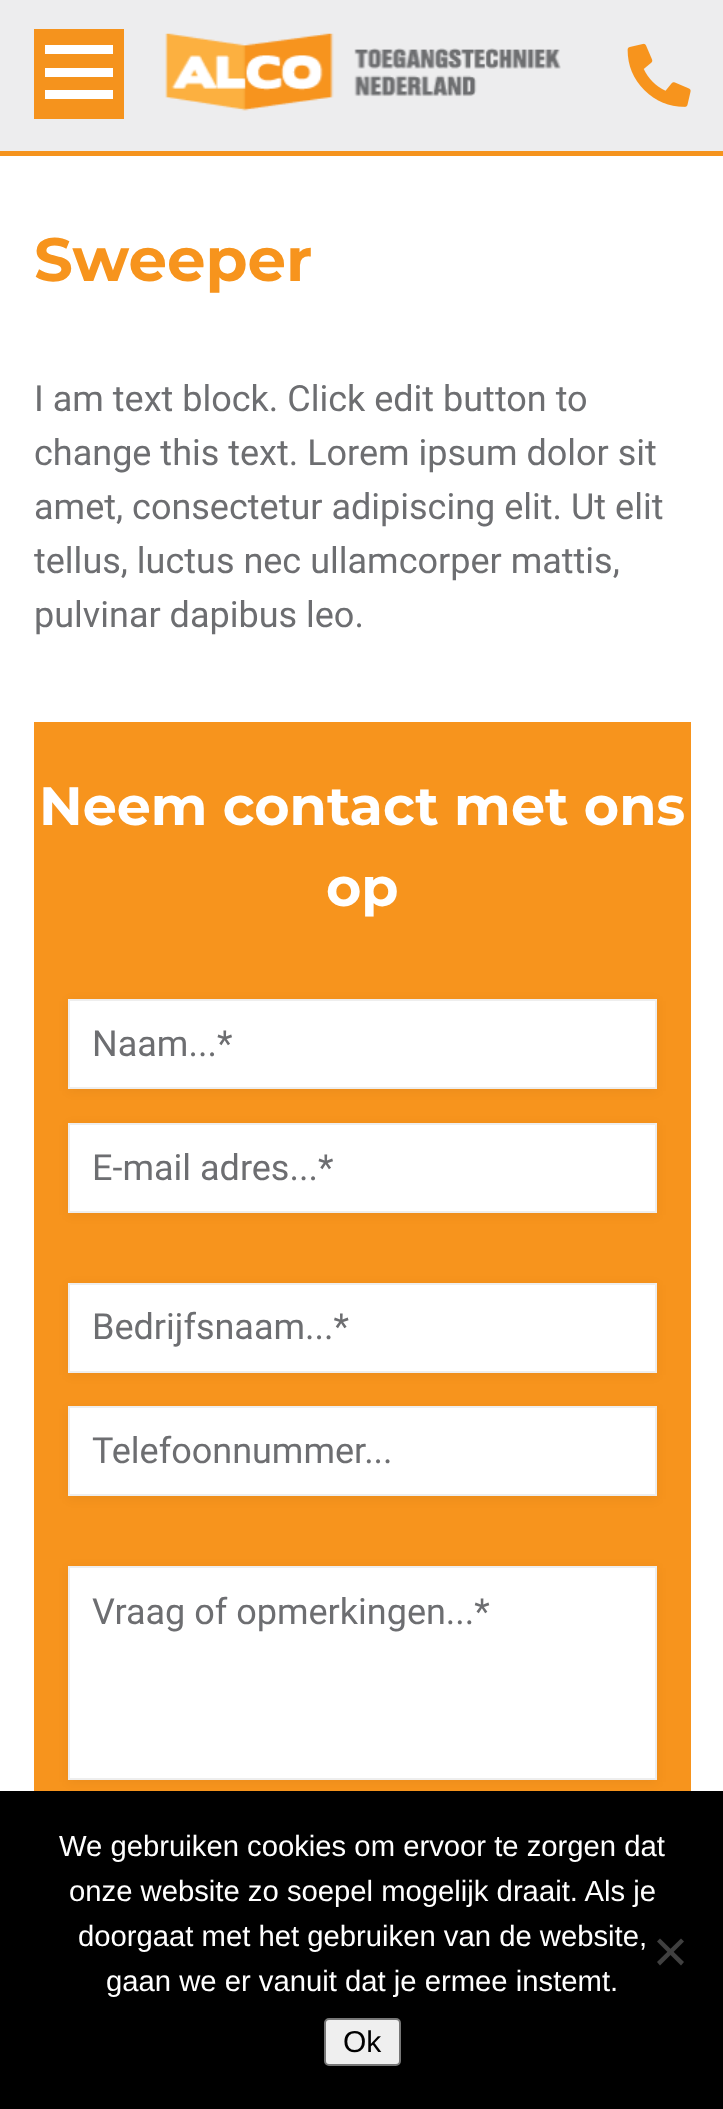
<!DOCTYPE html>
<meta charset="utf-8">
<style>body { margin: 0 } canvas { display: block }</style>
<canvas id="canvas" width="723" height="2109"></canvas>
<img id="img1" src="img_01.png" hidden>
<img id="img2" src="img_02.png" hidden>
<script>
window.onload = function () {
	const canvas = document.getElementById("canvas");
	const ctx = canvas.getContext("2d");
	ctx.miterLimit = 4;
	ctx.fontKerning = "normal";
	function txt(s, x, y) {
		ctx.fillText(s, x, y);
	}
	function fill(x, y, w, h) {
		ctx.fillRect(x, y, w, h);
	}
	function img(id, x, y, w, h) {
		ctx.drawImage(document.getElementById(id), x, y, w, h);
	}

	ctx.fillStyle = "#FFFFFF";
	fill(0, 0, 723, 2109);
	ctx.fillStyle = "#EDEDEE";
	fill(0, 0, 723, 151);
	ctx.fillStyle = "#F5931D";
	fill(0, 151, 723, 5);
	fill(34, 29, 90, 90);
	ctx.fillStyle = "#FFFFFF";
	fill(45, 45, 68, 9);
	fill(45, 68, 68, 9);
	fill(45, 90, 68, 9);
	img("img1", 165, 33, 396, 78);
	img("img2", 627, 43, 64, 64);
	ctx.fillStyle = "#F7941D";
	fill(34, 722, 657, 1069);
	ctx.fillStyle = "rgba(0, 0, 0, 0.05)";
	ctx.filter = "blur(5.5px)";
	ctx.beginPath();
	ctx.rect(68, 1001, 589, 90);
	ctx.fill();
	ctx.filter = "none";
	ctx.fillStyle = "#FFFFFF";
	ctx.beginPath();
	ctx.rect(69, 1000, 587, 88);
	ctx.fill();
	ctx.strokeStyle = "#EEEEEE";
	ctx.lineWidth = 2;
	ctx.stroke();
	ctx.fillStyle = "rgba(0, 0, 0, 0.05)";
	ctx.filter = "blur(5.5px)";
	ctx.beginPath();
	ctx.rect(68, 1125, 589, 90);
	ctx.fill();
	ctx.filter = "none";
	ctx.fillStyle = "#FFFFFF";
	ctx.beginPath();
	ctx.rect(69, 1124, 587, 88);
	ctx.fill();
	ctx.stroke();
	ctx.fillStyle = "rgba(0, 0, 0, 0.05)";
	ctx.filter = "blur(5.5px)";
	ctx.beginPath();
	ctx.rect(68, 1285, 589, 90);
	ctx.fill();
	ctx.filter = "none";
	ctx.fillStyle = "#FFFFFF";
	ctx.beginPath();
	ctx.rect(69, 1284, 587, 88);
	ctx.fill();
	ctx.stroke();
	ctx.fillStyle = "rgba(0, 0, 0, 0.05)";
	ctx.filter = "blur(5.5px)";
	ctx.beginPath();
	ctx.rect(68, 1409, 589, 90);
	ctx.fill();
	ctx.filter = "none";
	ctx.fillStyle = "#FFFFFF";
	ctx.beginPath();
	ctx.rect(69, 1407, 587, 88);
	ctx.fill();
	ctx.stroke();
	ctx.fillStyle = "rgba(0, 0, 0, 0.05)";
	ctx.filter = "blur(5.5px)";
	ctx.beginPath();
	ctx.rect(68, 1568, 589, 214);
	ctx.fill();
	ctx.filter = "none";
	ctx.fillStyle = "#FFFFFF";
	ctx.beginPath();
	ctx.rect(69, 1567, 587, 212);
	ctx.fill();
	ctx.stroke();
	ctx.fillStyle = "#000000";
	fill(0, 1791, 723, 318);
	ctx.fillStyle = "#404040";
	ctx.beginPath();
	ctx.moveTo(681, 1938.5);
	ctx.lineTo(684, 1941.5);
	ctx.lineTo(660, 1965.5);
	ctx.lineTo(657, 1962);
	ctx.closePath();
	ctx.fill();
	ctx.beginPath();
	ctx.moveTo(657, 1941.5);
	ctx.lineTo(660, 1938.5);
	ctx.lineTo(684, 1962);
	ctx.lineTo(681, 1965.5);
	ctx.closePath();
	ctx.fill();
	ctx.fillStyle = "#EFEFEF";
	ctx.beginPath();
	ctx.roundRect(325, 2019, 75, 46, 4);
	ctx.fill();
	ctx.strokeStyle = "#767676";
	ctx.stroke();
	ctx.font = "bold 61px Montserrat";
	ctx.fillStyle = "#F7941D";
	txt("Sweeper", 34, 281);
	ctx.font = "36px Roboto";
	ctx.fillStyle = "#6D6E71";
	txt("I am text block. Click edit button to", 34, 411);
	txt("change this text. Lorem ipsum dolor sit", 34, 465);
	txt("amet, consectetur adipiscing elit. Ut elit", 34, 519);
	txt("tellus, luctus nec ullamcorper mattis,", 34, 573);
	txt("pulvinar dapibus leo.", 34, 627);
	ctx.font = "bold 54px Montserrat";
	ctx.fillStyle = "#FFFFFF";
	txt("Neem contact met ons", 39, 825);
	txt("op", 326, 906);
	ctx.font = "36px Roboto";
	ctx.fillStyle = "#6D6E71";
	txt("Naam...*", 92, 1056);
	txt("E-mail adres...*", 92, 1180);
	txt("Bedrijfsnaam...*", 92, 1339);
	txt("Telefoonnummer...", 92, 1463);
	txt("Vraag of opmerkingen...*", 92, 1624);
	ctx.font = "29.25px Liberation Sans";
	ctx.fillStyle = "#FFFFFF";
	txt("We gebruiken cookies om ervoor te zorgen dat", 59, 1856);
	txt("onze website zo soepel mogelijk draait. Als je", 69, 1901);
	txt("doorgaat met het gebruiken van de website,", 78, 1946);
	txt("gaan we er vanuit dat je ermee instemt.", 106, 1991);
	ctx.font = "30px Liberation Sans";
	ctx.fillStyle = "#000000";
	txt("Ok", 343, 2052);
};
</script>
